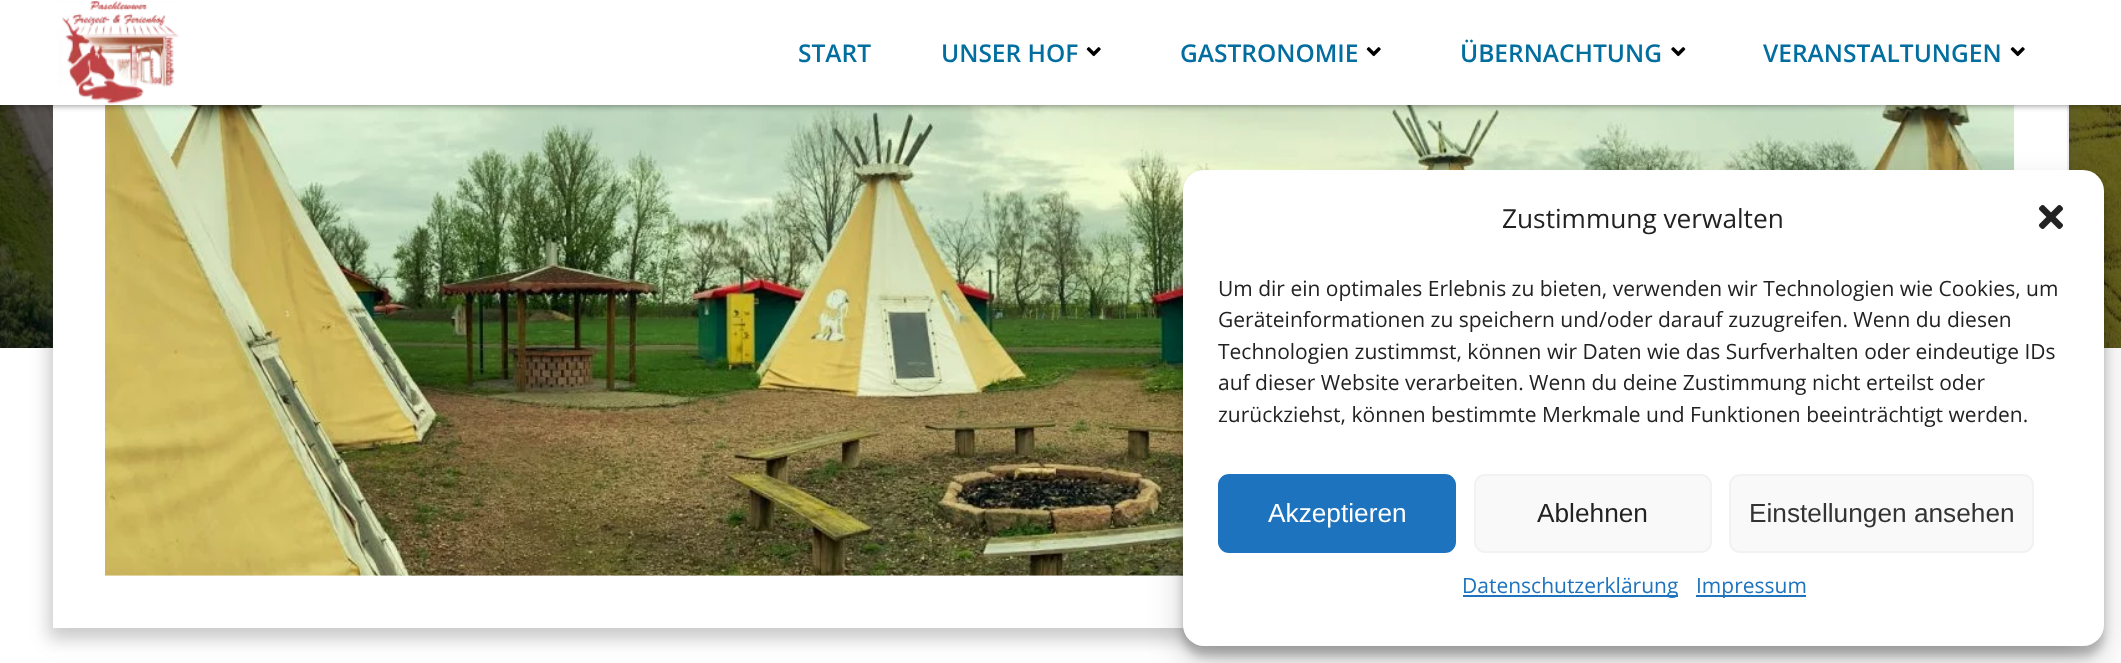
<!DOCTYPE html>
<meta charset="utf-8">
<style>body { margin: 0 } canvas { display: block }</style>
<canvas id="canvas" width="2121" height="663"></canvas>
<img id="img1" src="img_05.png" hidden>
<img id="img2" src="img_01.png" hidden>
<img id="img3" src="img_02.png" hidden>
<img id="img4" src="img_03.png" hidden>
<img id="img5" src="img_04.png" hidden>
<img id="img6" src="img_06.png" hidden>
<script>
window.onload = function () {
	const canvas = document.getElementById("canvas");
	const ctx = canvas.getContext("2d");
	ctx.miterLimit = 4;
	ctx.fontKerning = "normal";
	function txt(s, x, y) {
		ctx.fillText(s, x, y);
	}
	function fill(x, y, w, h) {
		ctx.fillRect(x, y, w, h);
	}
	function round(x, y, w, h, r) {
		ctx.beginPath();
		ctx.roundRect(x, y, w, h, r);
		ctx.fill();
	}
	function img(id, x, y, w, h) {
		ctx.drawImage(document.getElementById(id), x, y, w, h);
	}

	ctx.fillStyle = "#FFFFFF";
	fill(0, 0, 2121, 663);
	img("img1", 0, 105, 2121, 243);
	ctx.fillStyle = "rgba(74, 74, 74, 0.3)";
	ctx.filter = "blur(9px)";
	ctx.beginPath();
	ctx.rect(49, 2, 2023, 637);
	ctx.fill();
	ctx.filter = "none";
	ctx.fillStyle = "#FFFFFF";
	fill(53, 105, 2014, 523);
	ctx.fillStyle = "#EDEDED";
	fill(2067, 105, 2, 65);
	img("img2", 105, 105, 1910, 471);
	ctx.fillStyle = "rgba(0, 0, 0, 0.5)";
	ctx.filter = "blur(3.5px)";
	ctx.beginPath();
	ctx.rect(0, 0, 2121, 105);
	ctx.fill();
	ctx.filter = "none";
	ctx.fillStyle = "#FFFFFF";
	fill(0, 0, 2121, 105);
	img("img3", 58, 1, 121, 103);
	img("img4", 1086, 47, 15, 10);
	img("img4", 1366, 47, 15, 10);
	img("img5", 1671, 47, 15, 10);
	img("img4", 2010, 47, 15, 10);
	ctx.fillStyle = "rgba(0, 0, 0, 0.23)";
	ctx.filter = "blur(5px)";
	ctx.beginPath();
	ctx.roundRect(1183, 180, 921, 476, 21);
	ctx.fill();
	ctx.filter = "none";
	ctx.fillStyle = "rgba(0, 0, 0, 0.19)";
	ctx.filter = "blur(17.5px)";
	ctx.beginPath();
	ctx.roundRect(1183, 187, 921, 476, 21);
	ctx.fill();
	ctx.filter = "none";
	ctx.fillStyle = "#FFFFFF";
	round(1183, 170, 921, 476, 21);
	img("img6", 2039, 205, 24, 24);
	ctx.fillStyle = "#1E73BE";
	ctx.beginPath();
	ctx.roundRect(1219, 475, 236, 77, 10);
	ctx.fill();
	ctx.strokeStyle = "#1E73BE";
	ctx.lineWidth = 2;
	ctx.stroke();
	ctx.fillStyle = "#F9F9F9";
	ctx.beginPath();
	ctx.roundRect(1475, 475, 236, 77, 10);
	ctx.fill();
	ctx.strokeStyle = "#F2F2F2";
	ctx.stroke();
	ctx.beginPath();
	ctx.roundRect(1730, 475, 303, 77, 10);
	ctx.fill();
	ctx.stroke();
	ctx.fillStyle = "#1E73BE";
	fill(1463, 595, 215, 2);
	fill(1696, 595, 110, 2);
	ctx.font = "600 24.5px Open Sans";
	ctx.fillStyle = "#026E9F";
	txt("START", 798, 62);
	txt("UNSER HOF", 941, 62);
	txt("GASTRONOMIE", 1180, 62);
	txt("ÜBERNACHTUNG", 1460, 62);
	txt("VERANSTALTUNGEN", 1763, 62);
	ctx.font = "26.25px Open Sans";
	ctx.fillStyle = "#222222";
	txt("Zustimmung verwalten", 1502, 228);
	ctx.font = "21px Open Sans";
	txt("Um dir ein optimales Erlebnis zu bieten, verwenden wir Technologien wie Cookies, um", 1218, 296);
	txt("Geräteinformationen zu speichern und/oder darauf zuzugreifen. Wenn du diesen", 1218, 327);
	txt("Technologien zustimmst, können wir Daten wie das Surfverhalten oder eindeutige IDs", 1218, 359);
	txt("auf dieser Website verarbeiten. Wenn du deine Zustimmung nicht erteilst oder", 1218, 390);
	txt("zurückziehst, können bestimmte Merkmale und Funktionen beeinträchtigt werden.", 1218, 422);
	ctx.font = "26.25px Liberation Sans";
	ctx.fillStyle = "#FFFFFF";
	txt("Akzeptieren", 1268, 522);
	ctx.fillStyle = "#222222";
	txt("Ablehnen", 1537, 522);
	ctx.fillStyle = "#333333";
	txt("Einstellungen ansehen", 1749, 522);
	ctx.font = "21px Open Sans";
	ctx.fillStyle = "#1E73BE";
	txt("Datenschutzerklärung", 1462, 593);
	txt("Impressum", 1696, 593);
};
</script>
